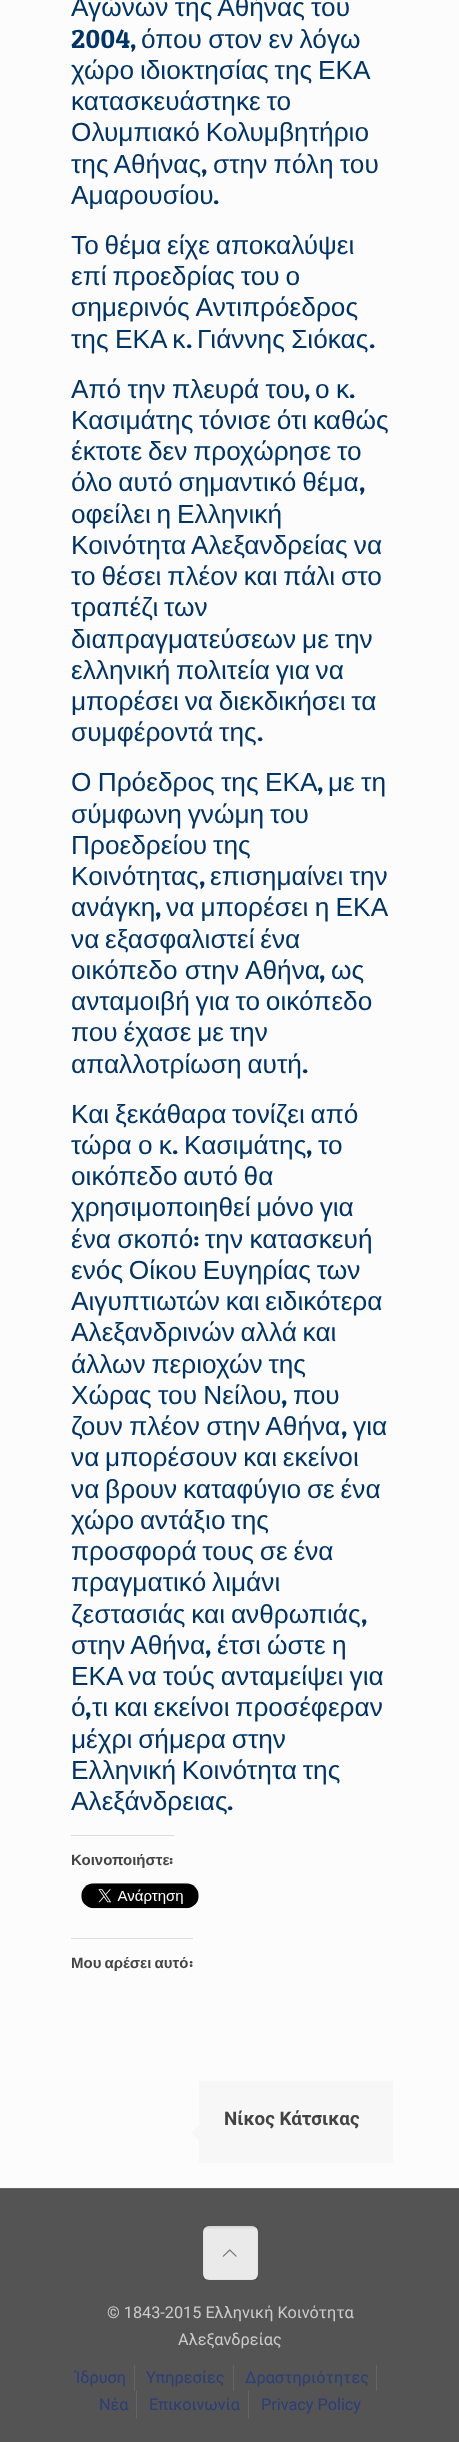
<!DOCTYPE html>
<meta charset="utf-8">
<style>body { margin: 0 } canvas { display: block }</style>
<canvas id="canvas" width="459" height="2442"></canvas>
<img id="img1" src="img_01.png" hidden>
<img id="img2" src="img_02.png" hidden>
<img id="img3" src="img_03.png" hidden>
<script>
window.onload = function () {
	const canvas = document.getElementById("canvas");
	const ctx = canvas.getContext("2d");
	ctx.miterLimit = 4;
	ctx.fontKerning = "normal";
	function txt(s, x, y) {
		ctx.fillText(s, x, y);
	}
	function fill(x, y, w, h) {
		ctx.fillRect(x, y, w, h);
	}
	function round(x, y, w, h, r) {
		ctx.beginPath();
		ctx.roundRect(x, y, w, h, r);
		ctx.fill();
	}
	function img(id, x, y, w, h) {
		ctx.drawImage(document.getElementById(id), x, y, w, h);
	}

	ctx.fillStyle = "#FCFCFC";
	fill(0, 0, 459, 2442);
	ctx.fillStyle = "#DCDCDE";
	fill(71, 1835, 103, 1);
	img("img1", 81, 1883, 118, 26);
	fill(71, 1938, 122, 1);
	ctx.fillStyle = "#F7F7F7";
	fill(199, 2081, 194, 82);
	ctx.beginPath();
	ctx.moveTo(199, 2125);
	ctx.lineTo(199, 2140);
	ctx.lineTo(191, 2132.5);
	ctx.closePath();
	ctx.fill();
	ctx.fillStyle = "#545454";
	fill(0, 2189, 459, 253);
	ctx.fillStyle = "#656565";
	fill(0, 2188, 459, 1);
	ctx.fillStyle = "#F7F7F7";
	round(203, 2226, 55, 54, 6);
	img("img2", 204, 2226, 52, 3);
	ctx.strokeStyle = "rgba(0, 0, 0, 0.03)";
	ctx.strokeRect(203.5, 2226.5, 54, 53);
	ctx.fillStyle = "rgba(0, 0, 0, 0.05)";
	fill(203, 2226, 55, 54);
	img("img3", 222, 2249, 15, 8);
	ctx.fillStyle = "#656565";
	fill(134, 2365, 1, 26);
	fill(233, 2365, 1, 26);
	fill(376, 2365, 1, 26);
	fill(136, 2391, 1, 27);
	fill(248, 2391, 1, 27);
	ctx.wordSpacing = "-1px";
	ctx.font = "26.25px Liberation Sans";
	ctx.fillStyle = "#003366";
	txt("Αγώνων της Αθήνας του", 71, 16);
	ctx.wordSpacing = "0px";
	ctx.font = "26.25px Patua One";
	txt("2004,", 71, 48);
	ctx.wordSpacing = "-1px";
	ctx.font = "26.25px Liberation Sans";
	txt("όπου στον εν λόγω", 141, 48);
	ctx.wordSpacing = "-1.5px";
	txt("χώρο ιδιοκτησίας της ΕΚΑ", 71, 79);
	txt("κατασκευάστηκε το", 71, 110);
	txt("Ολυμπιακό Κολυμβητήριο", 71, 141);
	ctx.wordSpacing = "-1px";
	txt("της Αθήνας", 71, 173);
	ctx.wordSpacing = "0px";
	ctx.font = "26.25px Patua One";
	txt(",", 201, 173);
	ctx.wordSpacing = "-1px";
	ctx.font = "26.25px Liberation Sans";
	txt("στην πόλη του", 213, 173);
	ctx.wordSpacing = "0px";
	txt("Αμαρουσίου", 71, 204);
	ctx.font = "26.25px Patua One";
	txt(".", 213, 204);
	ctx.wordSpacing = "-1.5px";
	ctx.font = "26.25px Liberation Sans";
	txt("Το θέμα είχε αποκαλύψει", 71, 254);
	txt("επί προεδρίας του ο", 71, 285);
	ctx.wordSpacing = "0px";
	txt("σημερινός Αντιπρόεδρος", 71, 316);
	ctx.wordSpacing = "-1px";
	txt("της ΕΚΑ κ", 71, 348);
	ctx.wordSpacing = "0px";
	ctx.font = "26.25px Patua One";
	txt(".", 186, 348);
	ctx.wordSpacing = "-1px";
	ctx.font = "26.25px Liberation Sans";
	txt("Γιάννης Σιόκας", 197, 348);
	ctx.wordSpacing = "0px";
	ctx.font = "26.25px Patua One";
	txt(".", 369, 348);
	ctx.wordSpacing = "-1px";
	ctx.font = "26.25px Liberation Sans";
	txt("Από την πλευρά του", 71, 398);
	ctx.wordSpacing = "0px";
	ctx.font = "26.25px Patua One";
	txt(",", 304, 398);
	ctx.wordSpacing = "-1px";
	ctx.font = "26.25px Liberation Sans";
	txt("ο κ", 315, 398);
	ctx.wordSpacing = "0px";
	ctx.font = "26.25px Patua One";
	txt(".", 349, 398);
	ctx.wordSpacing = "-1.5px";
	ctx.font = "26.25px Liberation Sans";
	txt("Κασιμάτης τόνισε ότι καθώς", 71, 429);
	txt("έκτοτε δεν προχώρησε το", 71, 460);
	txt("όλο αυτό σημαντικό θέμα", 71, 491);
	ctx.wordSpacing = "0px";
	ctx.font = "26.25px Patua One";
	txt(",", 359, 491);
	ctx.wordSpacing = "-1.5px";
	ctx.font = "26.25px Liberation Sans";
	txt("οφείλει η Ελληνική", 71, 523);
	ctx.wordSpacing = "-1px";
	txt("Κοινότητα Αλεξανδρείας να", 71, 554);
	ctx.wordSpacing = "-1.5px";
	txt("το θέσει πλέον και πάλι στο", 71, 585);
	txt("τραπέζι των", 71, 616);
	txt("διαπραγματεύσεων με την", 71, 648);
	txt("ελληνική πολιτεία για να", 71, 679);
	txt("μπορέσει να διεκδικήσει τα", 71, 710);
	txt("συμφέροντά της", 71, 741);
	ctx.wordSpacing = "0px";
	ctx.font = "26.25px Patua One";
	txt(".", 257, 741);
	ctx.wordSpacing = "-1px";
	ctx.font = "26.25px Liberation Sans";
	txt("Ο Πρόεδρος της ΕΚΑ", 71, 791);
	ctx.wordSpacing = "0px";
	ctx.font = "26.25px Patua One";
	txt(",", 317, 791);
	ctx.wordSpacing = "-1px";
	ctx.font = "26.25px Liberation Sans";
	txt("με τη", 328, 791);
	ctx.wordSpacing = "-1.5px";
	txt("σύμφωνη γνώμη του", 71, 823);
	txt("Προεδρείου της", 71, 854);
	ctx.wordSpacing = "0px";
	txt("Κοινότητας", 71, 885);
	ctx.font = "26.25px Patua One";
	txt(",", 199, 885);
	ctx.wordSpacing = "-1px";
	ctx.font = "26.25px Liberation Sans";
	txt("επισημαίνει την", 210, 885);
	ctx.wordSpacing = "0px";
	txt("ανάγκη", 71, 916);
	ctx.font = "26.25px Patua One";
	txt(",", 155, 916);
	ctx.wordSpacing = "-1px";
	ctx.font = "26.25px Liberation Sans";
	txt("να μπορέσει η ΕΚΑ", 166, 916);
	ctx.wordSpacing = "-1.5px";
	txt("να εξασφαλιστεί ένα", 71, 948);
	ctx.wordSpacing = "0px";
	txt("οικόπεδο στην Αθήνα", 71, 979);
	ctx.font = "26.25px Patua One";
	txt(",", 319, 979);
	ctx.font = "26.25px Liberation Sans";
	txt("ως", 331, 979);
	ctx.wordSpacing = "-1.5px";
	txt("ανταμοιβή για το οικόπεδο", 71, 1010);
	txt("που έχασε με την", 71, 1041);
	txt("απαλλοτρίωση αυτή", 71, 1073);
	ctx.wordSpacing = "0px";
	ctx.font = "26.25px Patua One";
	txt(".", 302, 1073);
	ctx.wordSpacing = "-1.5px";
	ctx.font = "26.25px Liberation Sans";
	txt("Και ξεκάθαρα τονίζει από", 71, 1123);
	ctx.wordSpacing = "-1px";
	txt("τώρα ο κ", 71, 1154);
	ctx.wordSpacing = "0px";
	ctx.font = "26.25px Patua One";
	txt(".", 172, 1154);
	ctx.font = "26.25px Liberation Sans";
	txt("Κασιμάτης", 184, 1154);
	ctx.font = "26.25px Patua One";
	txt(",", 306, 1154);
	ctx.font = "26.25px Liberation Sans";
	txt("το", 318, 1154);
	ctx.wordSpacing = "-1.5px";
	txt("οικόπεδο αυτό θα", 71, 1185);
	txt("χρησιμοποιηθεί μόνο για", 71, 1216);
	ctx.wordSpacing = "-1px";
	txt("ένα σκοπό", 71, 1248);
	ctx.wordSpacing = "0px";
	ctx.font = "26.25px Patua One";
	txt(":", 193, 1248);
	ctx.wordSpacing = "-1px";
	ctx.font = "26.25px Liberation Sans";
	txt("την κατασκευή", 205, 1248);
	ctx.wordSpacing = "-1.5px";
	txt("ενός Οίκου Ευγηρίας των", 71, 1279);
	txt("Αιγυπτιωτών και ειδικότερα", 71, 1310);
	txt("Αλεξανδρινών αλλά και", 71, 1341);
	txt("άλλων περιοχών της", 71, 1373);
	ctx.wordSpacing = "-1px";
	txt("Χώρας του Νείλου", 71, 1404);
	ctx.wordSpacing = "0px";
	ctx.font = "26.25px Patua One";
	txt(",", 281, 1404);
	ctx.font = "26.25px Liberation Sans";
	txt("που", 293, 1404);
	ctx.wordSpacing = "-1px";
	txt("ζουν πλέον στην Αθήνα", 71, 1435);
	ctx.wordSpacing = "0px";
	ctx.font = "26.25px Patua One";
	txt(",", 341, 1435);
	ctx.font = "26.25px Liberation Sans";
	txt("για", 353, 1435);
	ctx.wordSpacing = "-1.5px";
	txt("να μπορέσουν και εκείνοι", 71, 1466);
	txt("να βρουν καταφύγιο σε ένα", 71, 1498);
	txt("χώρο αντάξιο της", 71, 1529);
	txt("προσφορά τους σε ένα", 71, 1560);
	txt("πραγματικό λιμάνι", 71, 1591);
	txt("ζεστασιάς και ανθρωπιάς", 71, 1623);
	ctx.wordSpacing = "0px";
	ctx.font = "26.25px Patua One";
	txt(",", 361, 1623);
	ctx.wordSpacing = "-1px";
	ctx.font = "26.25px Liberation Sans";
	txt("στην Αθήνα", 71, 1654);
	ctx.wordSpacing = "0px";
	ctx.font = "26.25px Patua One";
	txt(",", 205, 1654);
	ctx.wordSpacing = "-1px";
	ctx.font = "26.25px Liberation Sans";
	txt("έτσι ώστε η", 217, 1654);
	txt("ΕΚΑ να τούς ανταμείψει για", 71, 1685);
	ctx.wordSpacing = "0px";
	txt("ό", 71, 1716);
	ctx.font = "26.25px Patua One";
	txt(",", 85, 1716);
	ctx.wordSpacing = "-1.5px";
	ctx.font = "26.25px Liberation Sans";
	txt("τι και εκείνοι προσέφεραν", 92, 1716);
	txt("μέχρι σήμερα στην", 71, 1748);
	txt("Ελληνική Κοινότητα της", 71, 1779);
	ctx.wordSpacing = "0px";
	txt("Αλεξάνδρειας", 71, 1810);
	ctx.font = "26.25px Patua One";
	txt(".", 227, 1810);
	ctx.font = "bold 15px Liberation Sans";
	ctx.fillStyle = "#444444";
	txt("Κοινοποιήστε", 71, 1865);
	ctx.font = "bold 15px Patua One";
	txt(":", 169, 1865);
	ctx.wordSpacing = "-1px";
	ctx.font = "bold 15px Liberation Sans";
	txt("Μου αρέσει αυτό", 71, 1968);
	ctx.wordSpacing = "0px";
	ctx.font = "bold 15px Patua One";
	txt(":", 189, 1968);
	ctx.font = "bold 18.75px Roboto";
	txt("Νίκος Κάτσικας", 224, 2125);
	ctx.font = "16.25px Roboto";
	ctx.fillStyle = "#CCCCCC";
	txt("© 1843-2015 Ελληνική Κοινότητα", 107, 2318);
	txt("Αλεξανδρείας", 178, 2345);
	ctx.fillStyle = "#293E7A";
	txt("Ίδρυση", 75, 2383);
	txt("Υπηρεσίες", 146, 2383);
	txt("Δραστηριότητες", 245, 2383);
	txt("Νέα", 99, 2410);
	txt("Επικοινωνία", 149, 2410);
	txt("Privacy Policy", 261, 2410);
};
</script>
